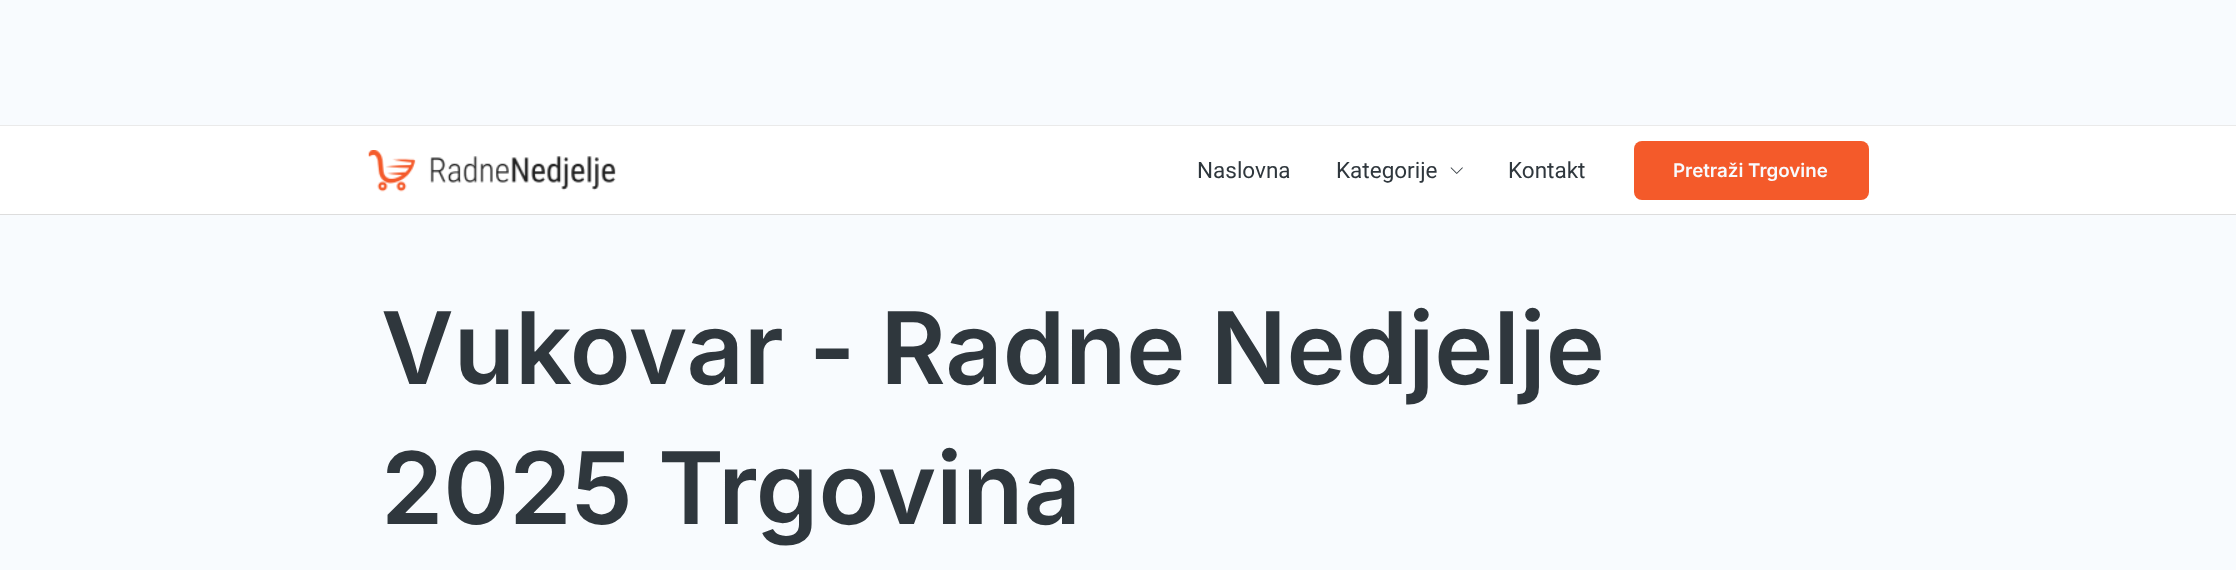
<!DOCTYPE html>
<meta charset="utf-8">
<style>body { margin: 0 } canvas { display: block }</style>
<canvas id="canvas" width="2236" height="570"></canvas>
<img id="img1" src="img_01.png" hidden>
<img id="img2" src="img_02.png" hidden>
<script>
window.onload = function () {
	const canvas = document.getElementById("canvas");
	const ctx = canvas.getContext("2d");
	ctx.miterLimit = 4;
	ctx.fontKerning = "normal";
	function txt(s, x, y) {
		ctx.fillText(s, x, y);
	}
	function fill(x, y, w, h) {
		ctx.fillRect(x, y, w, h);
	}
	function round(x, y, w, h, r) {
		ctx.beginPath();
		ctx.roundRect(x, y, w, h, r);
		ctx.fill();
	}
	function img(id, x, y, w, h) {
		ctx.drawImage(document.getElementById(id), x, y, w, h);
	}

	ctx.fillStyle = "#F8FBFE";
	fill(0, 0, 2236, 570);
	ctx.fillStyle = "#EAEAEA";
	fill(0, 125, 2236, 1);
	ctx.fillStyle = "#FFFFFF";
	fill(0, 126, 2236, 88);
	ctx.fillStyle = "#DDDDDD";
	fill(0, 214, 2236, 1);
	img("img1", 368, 150, 248, 42);
	img("img2", 1450, 167, 13, 7);
	ctx.fillStyle = "#F45A2A";
	round(1634, 141, 235, 59, 8);
	ctx.font = "22.5px Roboto";
	ctx.fillStyle = "#2F373D";
	txt("Naslovna", 1197, 178);
	txt("Kategorije", 1336, 178);
	txt("Kontakt", 1508, 178);
	ctx.font = "600 18.75px Inter";
	ctx.fillStyle = "#F8FBFE";
	txt("Pretraži Trgovine", 1673, 177);
	ctx.font = "600 100px Inter";
	ctx.fillStyle = "#2F373D";
	txt("Vukovar - Radne Nedjelje", 381, 384);
	txt("2025 Trgovina", 381, 524);
};
</script>
